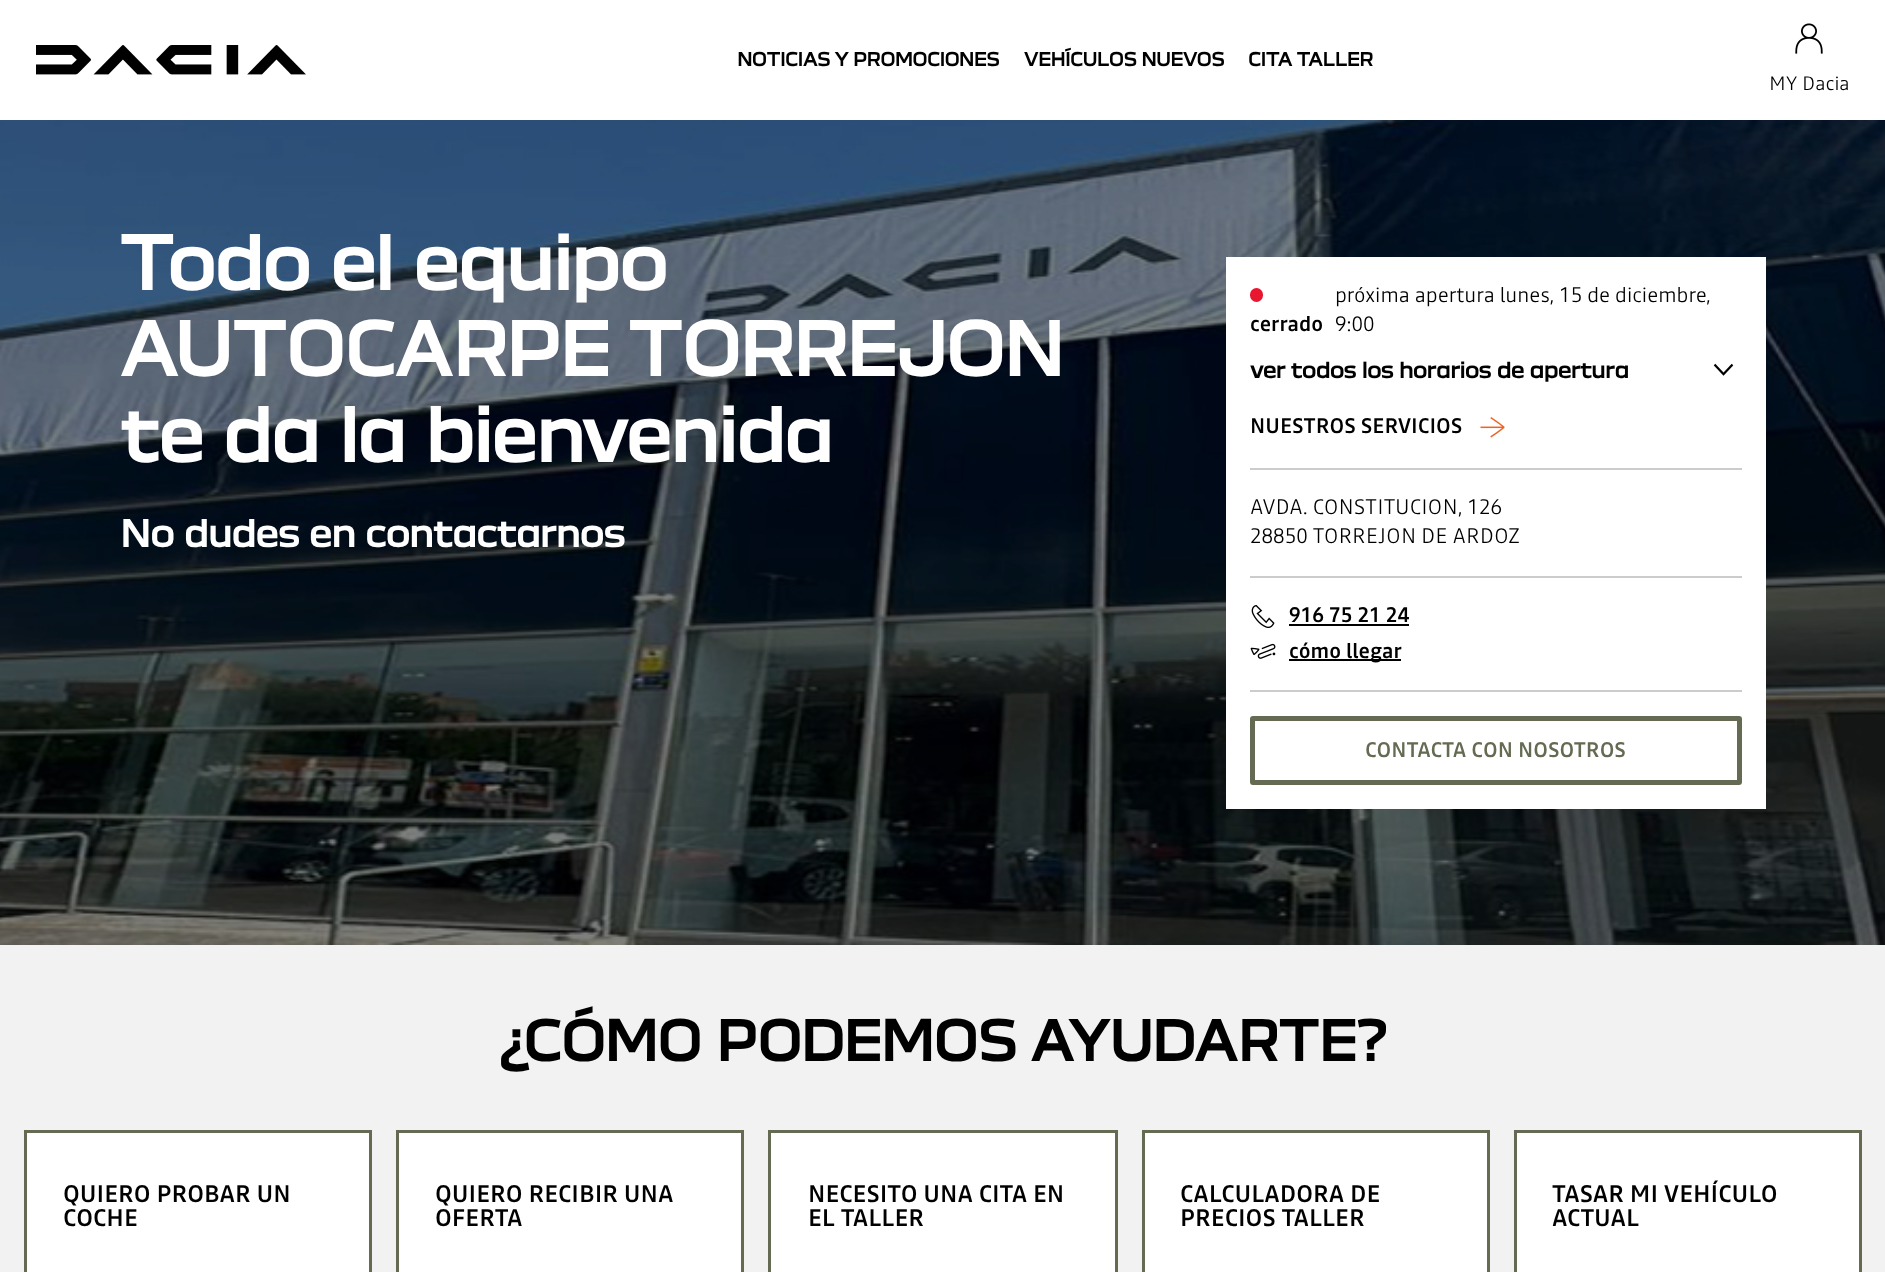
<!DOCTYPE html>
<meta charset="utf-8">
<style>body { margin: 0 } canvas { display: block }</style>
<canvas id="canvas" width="1885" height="1272"></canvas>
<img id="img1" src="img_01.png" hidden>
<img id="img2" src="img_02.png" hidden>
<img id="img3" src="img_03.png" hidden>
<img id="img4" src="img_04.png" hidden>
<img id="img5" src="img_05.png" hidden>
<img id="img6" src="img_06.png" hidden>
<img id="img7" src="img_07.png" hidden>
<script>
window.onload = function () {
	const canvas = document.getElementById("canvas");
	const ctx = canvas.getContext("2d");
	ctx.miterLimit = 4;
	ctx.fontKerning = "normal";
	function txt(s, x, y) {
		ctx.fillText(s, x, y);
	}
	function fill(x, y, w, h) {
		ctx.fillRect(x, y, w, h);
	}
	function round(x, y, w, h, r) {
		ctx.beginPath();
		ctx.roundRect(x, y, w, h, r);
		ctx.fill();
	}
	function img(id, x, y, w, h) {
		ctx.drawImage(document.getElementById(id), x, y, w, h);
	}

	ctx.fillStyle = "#FFFFFF";
	fill(0, 0, 1885, 1272);
	img("img1", 36, 45, 270, 30);
	img("img2", 1795, 23, 28, 31);
	img("img3", 0, 120, 1885, 825);
	fill(1226, 257, 540, 552);
	ctx.fillStyle = "#E91630";
	round(1250, 288, 13, 14, 6.5);
	img("img4", 1713, 363, 21, 13);
	img("img5", 1480, 417, 25, 21);
	ctx.fillStyle = "#CCCCCC";
	fill(1250, 468, 492, 2);
	fill(1250, 576, 492, 2);
	img("img6", 1251, 604, 24, 24);
	ctx.fillStyle = "#000000";
	fill(1289, 624, 120, 2);
	img("img7", 1250, 643, 26, 16);
	fill(1289, 659, 112, 2);
	ctx.fillStyle = "#CCCCCC";
	fill(1250, 690, 492, 2);
	ctx.beginPath();
	ctx.roundRect(1252.5, 718.5, 487, 64, 0.5);
	ctx.strokeStyle = "#646B52";
	ctx.lineWidth = 5;
	ctx.stroke();
	ctx.fillStyle = "#F2F2F2";
	fill(0, 945, 1885, 327);
	ctx.fillStyle = "#FFFFFF";
	ctx.beginPath();
	ctx.rect(25.5, 1131.5, 345, 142);
	ctx.fill();
	ctx.lineWidth = 3;
	ctx.stroke();
	ctx.beginPath();
	ctx.rect(397.5, 1131.5, 345, 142);
	ctx.fill();
	ctx.stroke();
	ctx.beginPath();
	ctx.rect(769.5, 1131.5, 347, 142);
	ctx.fill();
	ctx.stroke();
	ctx.beginPath();
	ctx.rect(1143.5, 1131.5, 345, 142);
	ctx.fill();
	ctx.stroke();
	ctx.beginPath();
	ctx.rect(1515.5, 1131.5, 345, 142);
	ctx.fill();
	ctx.stroke();
	ctx.font = "bold 18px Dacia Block";
	ctx.fillStyle = "#000000";
	txt("NOTICIAS Y PROMOCIONES", 737, 66);
	txt("VEHÍCULOS NUEVOS", 1024, 66);
	txt("CITA TALLER", 1248, 66);
	ctx.font = "300 19.5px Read";
	txt("MY Dacia", 1769, 90);
	ctx.font = "bold 72px Dacia Block";
	ctx.fillStyle = "#FFFFFF";
	txt("Todo el equipo", 120, 290);
	txt("AUTOCARPE TORREJON", 120, 376);
	txt("te da la bienvenida", 120, 462);
	ctx.font = "bold 36px Dacia Block";
	txt("No dudes en contactarnos", 120, 547);
	ctx.font = "500 21px Read";
	ctx.fillStyle = "#000000";
	txt("cerrado", 1250, 331);
	ctx.font = "300 21px Read";
	txt("próxima apertura lunes, 15 de diciembre,", 1335, 302);
	txt("9:00", 1335, 331);
	ctx.font = "bold 21px Dacia Block";
	txt("ver todos los horarios de apertura", 1250, 378);
	ctx.font = "500 21px Read";
	txt("NUESTROS SERVICIOS", 1250, 433);
	ctx.font = "300 21px Read";
	txt("AVDA. CONSTITUCION, 126", 1250, 514);
	txt("28850 TORREJON DE ARDOZ", 1250, 543);
	ctx.font = "500 21px Read";
	txt("916 75 21 24", 1289, 622);
	txt("cómo llegar", 1289, 658);
	ctx.fillStyle = "#646B52";
	txt("CONTACTA CON NOSOTROS", 1365, 757);
	ctx.font = "bold 54px Dacia Block";
	ctx.fillStyle = "#000000";
	txt("¿CÓMO PODEMOS AYUDARTE?", 500, 1061);
	ctx.font = "500 24px Read";
	txt("QUIERO PROBAR UN", 63, 1202);
	txt("COCHE", 63, 1226);
	txt("QUIERO RECIBIR UNA", 435, 1202);
	txt("OFERTA", 435, 1226);
	txt("NECESITO UNA CITA EN", 808, 1202);
	txt("EL TALLER", 808, 1226);
	txt("CALCULADORA DE", 1180, 1202);
	txt("PRECIOS TALLER", 1180, 1226);
	txt("TASAR MI VEHÍCULO", 1552, 1202);
	txt("ACTUAL", 1552, 1226);
};
</script>
